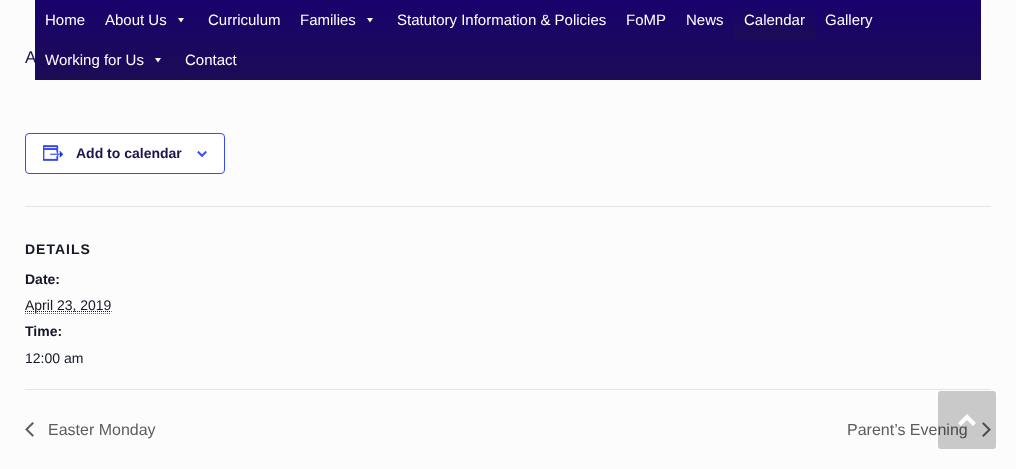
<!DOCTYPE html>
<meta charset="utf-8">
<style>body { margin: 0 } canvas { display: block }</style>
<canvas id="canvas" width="1016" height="469"></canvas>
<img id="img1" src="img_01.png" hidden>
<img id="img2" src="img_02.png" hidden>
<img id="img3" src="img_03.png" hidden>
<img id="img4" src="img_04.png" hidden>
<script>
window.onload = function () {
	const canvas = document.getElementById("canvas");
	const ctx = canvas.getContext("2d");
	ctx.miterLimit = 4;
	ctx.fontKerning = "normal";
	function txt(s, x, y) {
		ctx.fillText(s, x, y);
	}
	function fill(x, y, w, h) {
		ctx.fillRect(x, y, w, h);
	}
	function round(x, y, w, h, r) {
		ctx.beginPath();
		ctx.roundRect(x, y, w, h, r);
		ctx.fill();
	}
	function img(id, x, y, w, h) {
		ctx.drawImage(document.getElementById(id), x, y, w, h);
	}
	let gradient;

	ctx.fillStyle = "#FCFCFC";
	fill(0, 0, 1016, 469);
	ctx.fillStyle = "#FFFFFF";
	ctx.beginPath();
	ctx.roundRect(25.5, 133.5, 199, 40, 3.5);
	ctx.fill();
	ctx.strokeStyle = "#334AFF";
	ctx.stroke();
	img("img1", 43, 145, 21, 16);
	img("img2", 197, 151, 10, 6);
	ctx.fillStyle = "#E4E4E4";
	fill(25, 206, 966, 1);
	ctx.beginPath();
	ctx.moveTo(25, 313.5);
	ctx.lineTo(111, 313.5);
	ctx.strokeStyle = "#666666";
	ctx.setLineDash([1, 1]);
	ctx.stroke();
	ctx.beginPath();
	ctx.moveTo(25, 311.5);
	ctx.lineTo(111.5, 311.5);
	ctx.strokeStyle = "#141827";
	ctx.stroke();
	fill(25, 389, 966, 1);
	img("img3", 25, 422, 9, 15);
	img("img4", 982, 422, 9, 15);
	ctx.font = "17px Liberation Sans";
	ctx.fillStyle = "#1B154D";
	txt("A", 25, 63);
	gradient = ctx.createLinearGradient(508, 0, 508, 80);
	gradient.addColorStop(0, "#19026D");
	gradient.addColorStop(1, "#1C0C56");
	ctx.fillStyle = gradient;
	fill(35, 0, 946, 80);
	ctx.font = "15px Liberation Sans";
	ctx.fillStyle = "#FFFFFF";
	txt("Contact", 185, 65);
	ctx.beginPath();
	ctx.moveTo(161, 58);
	ctx.lineTo(158, 62.5);
	ctx.lineTo(155, 58);
	ctx.closePath();
	ctx.fill();
	txt("Working for Us", 45, 65);
	txt("Gallery", 825, 25);
	gradient = ctx.createLinearGradient(775, 0, 775, 40);
	gradient.addColorStop(0, "#19026D");
	gradient.addColorStop(1, "#1C0C56");
	ctx.fillStyle = gradient;
	fill(734, 8, 81, 32);
	ctx.fillStyle = "#FFFFFF";
	txt("Calendar", 744, 25);
	txt("News", 686, 25);
	txt("FoMP", 626, 25);
	txt("Statutory Information & Policies", 397, 25);
	ctx.beginPath();
	ctx.moveTo(373, 18);
	ctx.lineTo(370, 22.5);
	ctx.lineTo(367, 18);
	ctx.closePath();
	ctx.fill();
	txt("Families", 300, 25);
	txt("Curriculum", 208, 25);
	ctx.beginPath();
	ctx.moveTo(184, 18);
	ctx.lineTo(181, 22.5);
	ctx.lineTo(178, 18);
	ctx.closePath();
	ctx.fill();
	txt("About Us", 105, 25);
	txt("Home", 45, 25);
	ctx.font = "bold 14px Liberation Sans";
	ctx.fillStyle = "#1B154D";
	txt("Add to calendar", 76, 158);
	ctx.letterSpacing = "1px";
	ctx.fillStyle = "#141827";
	txt("DETAILS", 25, 254);
	ctx.letterSpacing = "0px";
	txt("Date:", 25, 284);
	ctx.font = "14px Liberation Sans";
	txt("April 23, 2019", 25, 310);
	ctx.font = "bold 14px Liberation Sans";
	txt("Time:", 25, 336);
	ctx.font = "14px Liberation Sans";
	txt("12:00 am", 25, 363);
	ctx.font = "16px Liberation Sans";
	ctx.fillStyle = "#5D5D5D";
	txt("Easter Monday", 48, 435);
	txt("Parent’s Evening", 847, 435);
	ctx.fillStyle = "rgba(0, 0, 0, 0.2)";
	round(938, 391, 58, 58, 3);
	ctx.fillStyle = "#FDFDFD";
	ctx.beginPath();
	ctx.moveTo(976, 423);
	ctx.lineTo(967, 414);
	ctx.lineTo(958, 423);
	ctx.lineTo(961, 426);
	ctx.lineTo(967, 420);
	ctx.lineTo(973, 426);
	ctx.closePath();
	ctx.fill();
};
</script>
